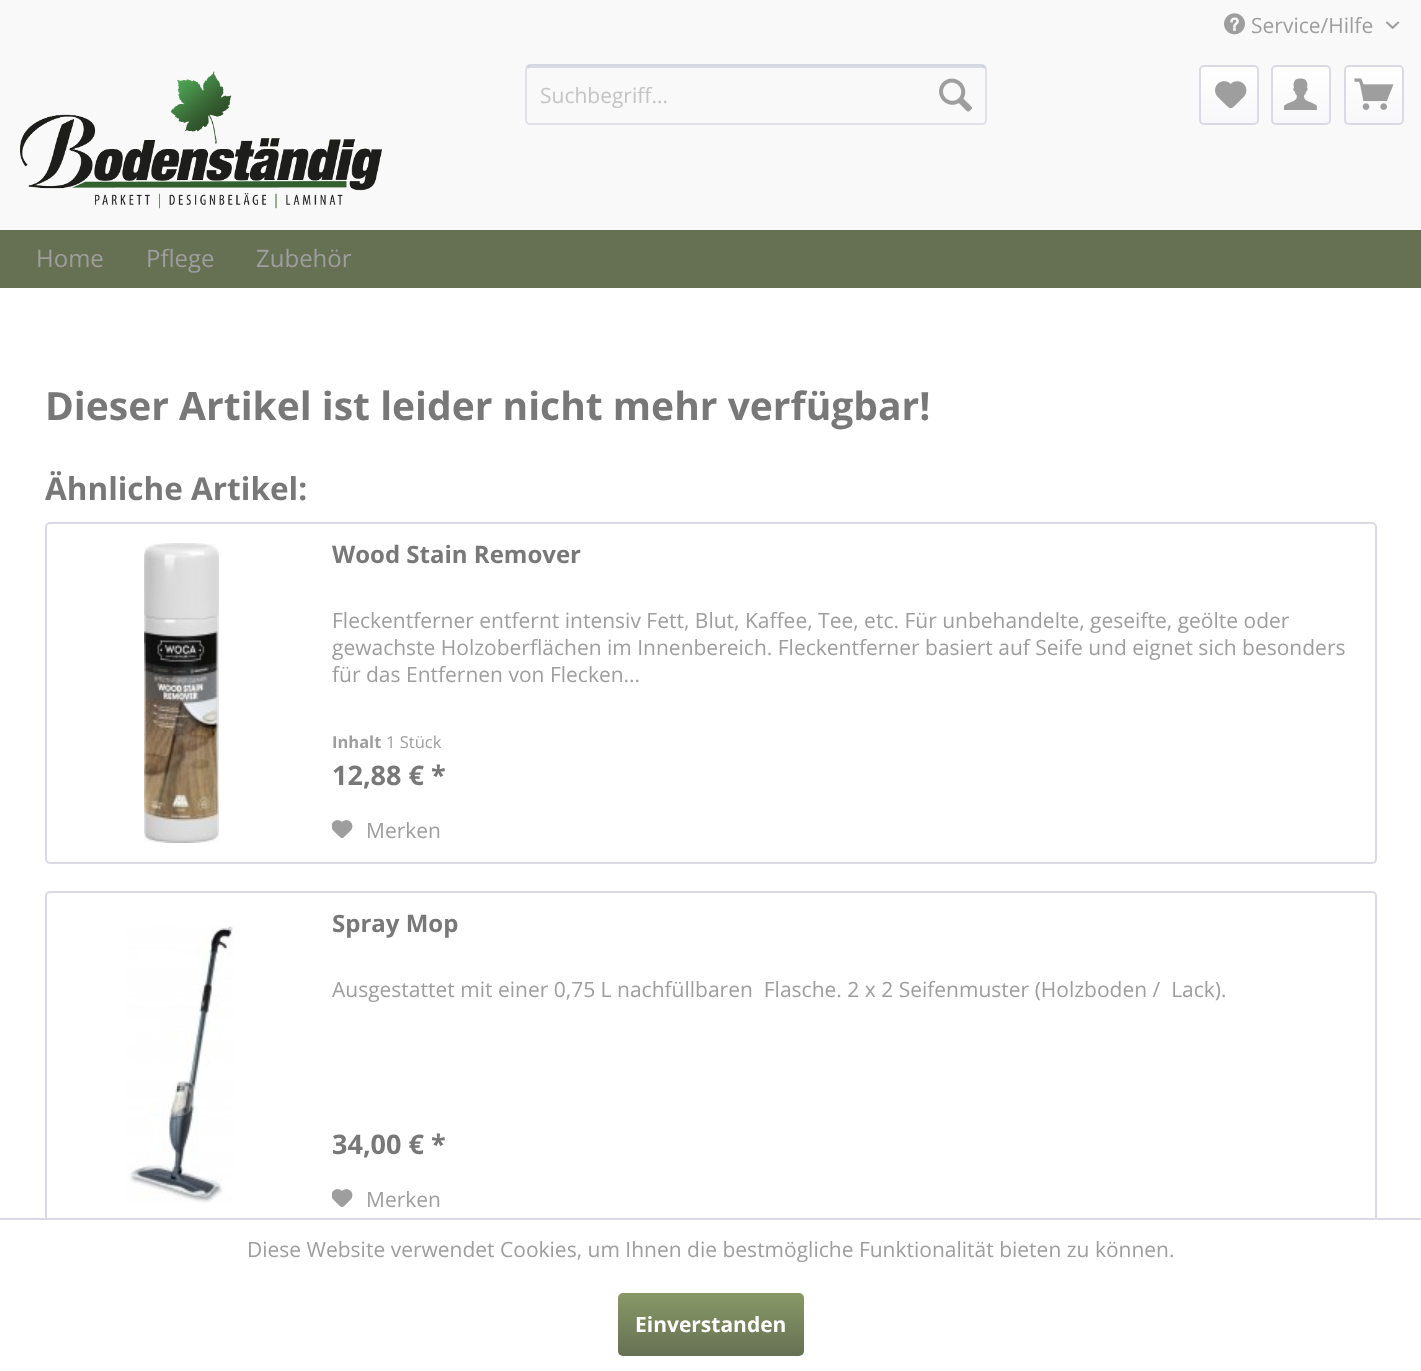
<!DOCTYPE html>
<meta charset="utf-8">
<style>body { margin: 0 } canvas { display: block }</style>
<canvas id="canvas" width="1421" height="1371"></canvas>
<img id="img1" src="img_01.png" hidden>
<img id="img2" src="img_02.png" hidden>
<img id="img3" src="img_03.png" hidden>
<img id="img4" src="img_04.png" hidden>
<img id="img5" src="img_05.png" hidden>
<img id="img6" src="img_06.png" hidden>
<img id="img7" src="img_07.png" hidden>
<img id="img8" src="img_08.png" hidden>
<img id="img9" src="img_09.png" hidden>
<img id="img10" src="img_10.png" hidden>
<script>
window.onload = function () {
	const canvas = document.getElementById("canvas");
	const ctx = canvas.getContext("2d");
	ctx.miterLimit = 4;
	ctx.fontKerning = "normal";
	function txt(s, x, y) {
		ctx.fillText(s, x, y);
	}
	function fill(x, y, w, h) {
		ctx.fillRect(x, y, w, h);
	}
	function round(x, y, w, h, r) {
		ctx.beginPath();
		ctx.roundRect(x, y, w, h, r);
		ctx.fill();
	}
	function img(id, x, y, w, h) {
		ctx.drawImage(document.getElementById(id), x, y, w, h);
	}
	let gradient;

	ctx.fillStyle = "#F9F9F9";
	fill(0, 0, 1421, 1371);
	img("img1", 1224, 13, 21, 22);
	img("img2", 1386, 21, 14, 8);
	img("img3", 20, 71, 362, 138);
	ctx.fillStyle = "#DADAE5";
	ctx.beginPath();
	ctx.moveTo(530, 68);
	ctx.lineTo(982, 68);
	ctx.bezierCurveTo(984, 68, 986, 69, 986, 70);
	ctx.lineTo(986, 69);
	ctx.bezierCurveTo(986, 67, 985, 66, 983, 66);
	ctx.lineTo(530, 66);
	ctx.bezierCurveTo(528, 66, 527, 67, 527, 69);
	ctx.closePath();
	ctx.fill();
	ctx.beginPath();
	ctx.moveTo(527, 66.5);
	ctx.lineTo(529.5, 65);
	ctx.lineTo(982.5, 65);
	ctx.lineTo(985, 66.5);
	ctx.strokeStyle = "#CBCBDB";
	ctx.lineWidth = 1.5;
	ctx.stroke();
	ctx.beginPath();
	ctx.moveTo(985, 66.5);
	ctx.bezierCurveTo(986, 67, 986, 68, 986, 69);
	ctx.lineTo(986, 120);
	ctx.bezierCurveTo(986, 121, 986, 122, 985, 122.5);
	ctx.bezierCurveTo(984.5, 123.5, 983.5, 124, 982.5, 124);
	ctx.lineTo(529.5, 124);
	ctx.bezierCurveTo(528.5, 124, 527.5, 123.5, 527, 122.5);
	ctx.bezierCurveTo(526, 122, 526, 121, 526, 120);
	ctx.lineTo(526, 69);
	ctx.bezierCurveTo(526, 68, 526, 67, 527, 66.5);
	ctx.strokeStyle = "#DADAE5";
	ctx.stroke();
	img("img4", 939, 78, 33, 34);
	gradient = ctx.createLinearGradient(1229, 66, 1229, 123);
	gradient.addColorStop(0, "#FFFFFF");
	gradient.addColorStop(1, "#F8F8FA");
	ctx.fillStyle = gradient;
	round(1200, 66, 57, 57, 3);
	ctx.beginPath();
	ctx.roundRect(1200, 66, 58, 58, 4);
	ctx.lineWidth = 2;
	ctx.stroke();
	img("img5", 1215, 81, 32, 28);
	gradient = ctx.createLinearGradient(1301, 66, 1301, 123);
	gradient.addColorStop(0, "#FFFFFF");
	gradient.addColorStop(1, "#F8F8FA");
	ctx.fillStyle = gradient;
	round(1272, 66, 57, 57, 3);
	ctx.beginPath();
	ctx.roundRect(1272, 66, 58, 58, 4);
	ctx.stroke();
	img("img6", 1284, 78, 33, 32);
	gradient = ctx.createLinearGradient(1374, 66, 1374, 123);
	gradient.addColorStop(0, "#FFFFFF");
	gradient.addColorStop(1, "#F8F8FA");
	ctx.fillStyle = gradient;
	round(1346, 66, 57, 57, 3);
	ctx.beginPath();
	ctx.roundRect(1345, 66, 58, 58, 4);
	ctx.stroke();
	img("img7", 1354, 78, 40, 32);
	ctx.fillStyle = "#667053";
	fill(0, 230, 1421, 58);
	ctx.fillStyle = "#FFFFFF";
	fill(0, 288, 1421, 930);
	ctx.beginPath();
	ctx.roundRect(46, 523, 1330, 340, 4);
	ctx.stroke();
	img("img8", 144, 543, 75, 300);
	img("img9", 332, 820, 21, 18);
	ctx.beginPath();
	ctx.roundRect(46, 892, 1330, 340, 4);
	ctx.stroke();
	img("img10", 126, 926, 108, 277);
	img("img9", 332, 1189, 21, 18);
	fill(0, 1220, 1421, 151);
	ctx.fillStyle = "#DADAE5";
	fill(0, 1218, 1421, 2);
	gradient = ctx.createLinearGradient(711, 1293, 711, 1356);
	gradient.addColorStop(0, "#889967");
	gradient.addColorStop(1, "#667053");
	ctx.fillStyle = gradient;
	round(618, 1293, 186, 63, 5);
	ctx.font = "21px Open Sans";
	ctx.fillStyle = "#9F9E9E";
	txt("Service/Hilfe", 1251, 33);
	ctx.fillStyle = "#C5C4C4";
	txt("Suchbegriff...", 540, 103);
	ctx.font = "24px Open Sans";
	ctx.fillStyle = "#9F9E9E";
	txt("Home", 36, 267);
	txt("Pflege", 146, 267);
	txt("Zubehör", 256, 267);
	ctx.font = "bold 39px Open Sans";
	ctx.fillStyle = "#797878";
	txt("Dieser Artikel ist leider nicht mehr verfügbar!", 45, 420);
	ctx.font = "bold 31.5px Open Sans";
	txt("Ähnliche Artikel:", 45, 500);
	ctx.font = "bold 24px Open Sans";
	txt("Wood Stain Remover", 332, 563);
	ctx.font = "21px Open Sans";
	ctx.fillStyle = "#9F9E9E";
	txt("Fleckentferner entfernt intensiv Fett, Blut, Kaffee, Tee, etc. Für unbehandelte, geseifte, geölte oder", 332, 628);
	txt("gewachste Holzoberflächen im Innenbereich. Fleckentferner basiert auf Seife und eignet sich besonders", 332, 655);
	txt("für das Entfernen von Flecken...", 332, 682);
	ctx.font = "bold 16.5px Open Sans";
	txt("Inhalt", 332, 748);
	ctx.font = "16.5px Open Sans";
	txt("1 Stück", 386, 748);
	ctx.font = "bold 27px Open Sans";
	ctx.fillStyle = "#797878";
	txt("12,88 € *", 332, 785);
	ctx.font = "21px Open Sans";
	ctx.fillStyle = "#9F9E9E";
	txt("Merken", 366, 838);
	ctx.font = "bold 24px Open Sans";
	ctx.fillStyle = "#797878";
	txt("Spray Mop", 332, 932);
	ctx.font = "21px Open Sans";
	ctx.fillStyle = "#9F9E9E";
	txt("Ausgestattet mit einer 0,75 L nachfüllbaren  Flasche. 2 x 2 Seifenmuster (Holzboden /  Lack).", 332, 997);
	ctx.font = "bold 27px Open Sans";
	ctx.fillStyle = "#797878";
	txt("34,00 € *", 332, 1154);
	ctx.font = "21px Open Sans";
	ctx.fillStyle = "#9F9E9E";
	txt("Merken", 366, 1207);
	txt("Diese Website verwendet Cookies, um Ihnen die bestmögliche Funktionalität bieten zu können.", 247, 1257);
	ctx.font = "bold 21px Open Sans";
	ctx.fillStyle = "#FFFFFF";
	txt("Einverstanden", 635, 1332);
};
</script>
